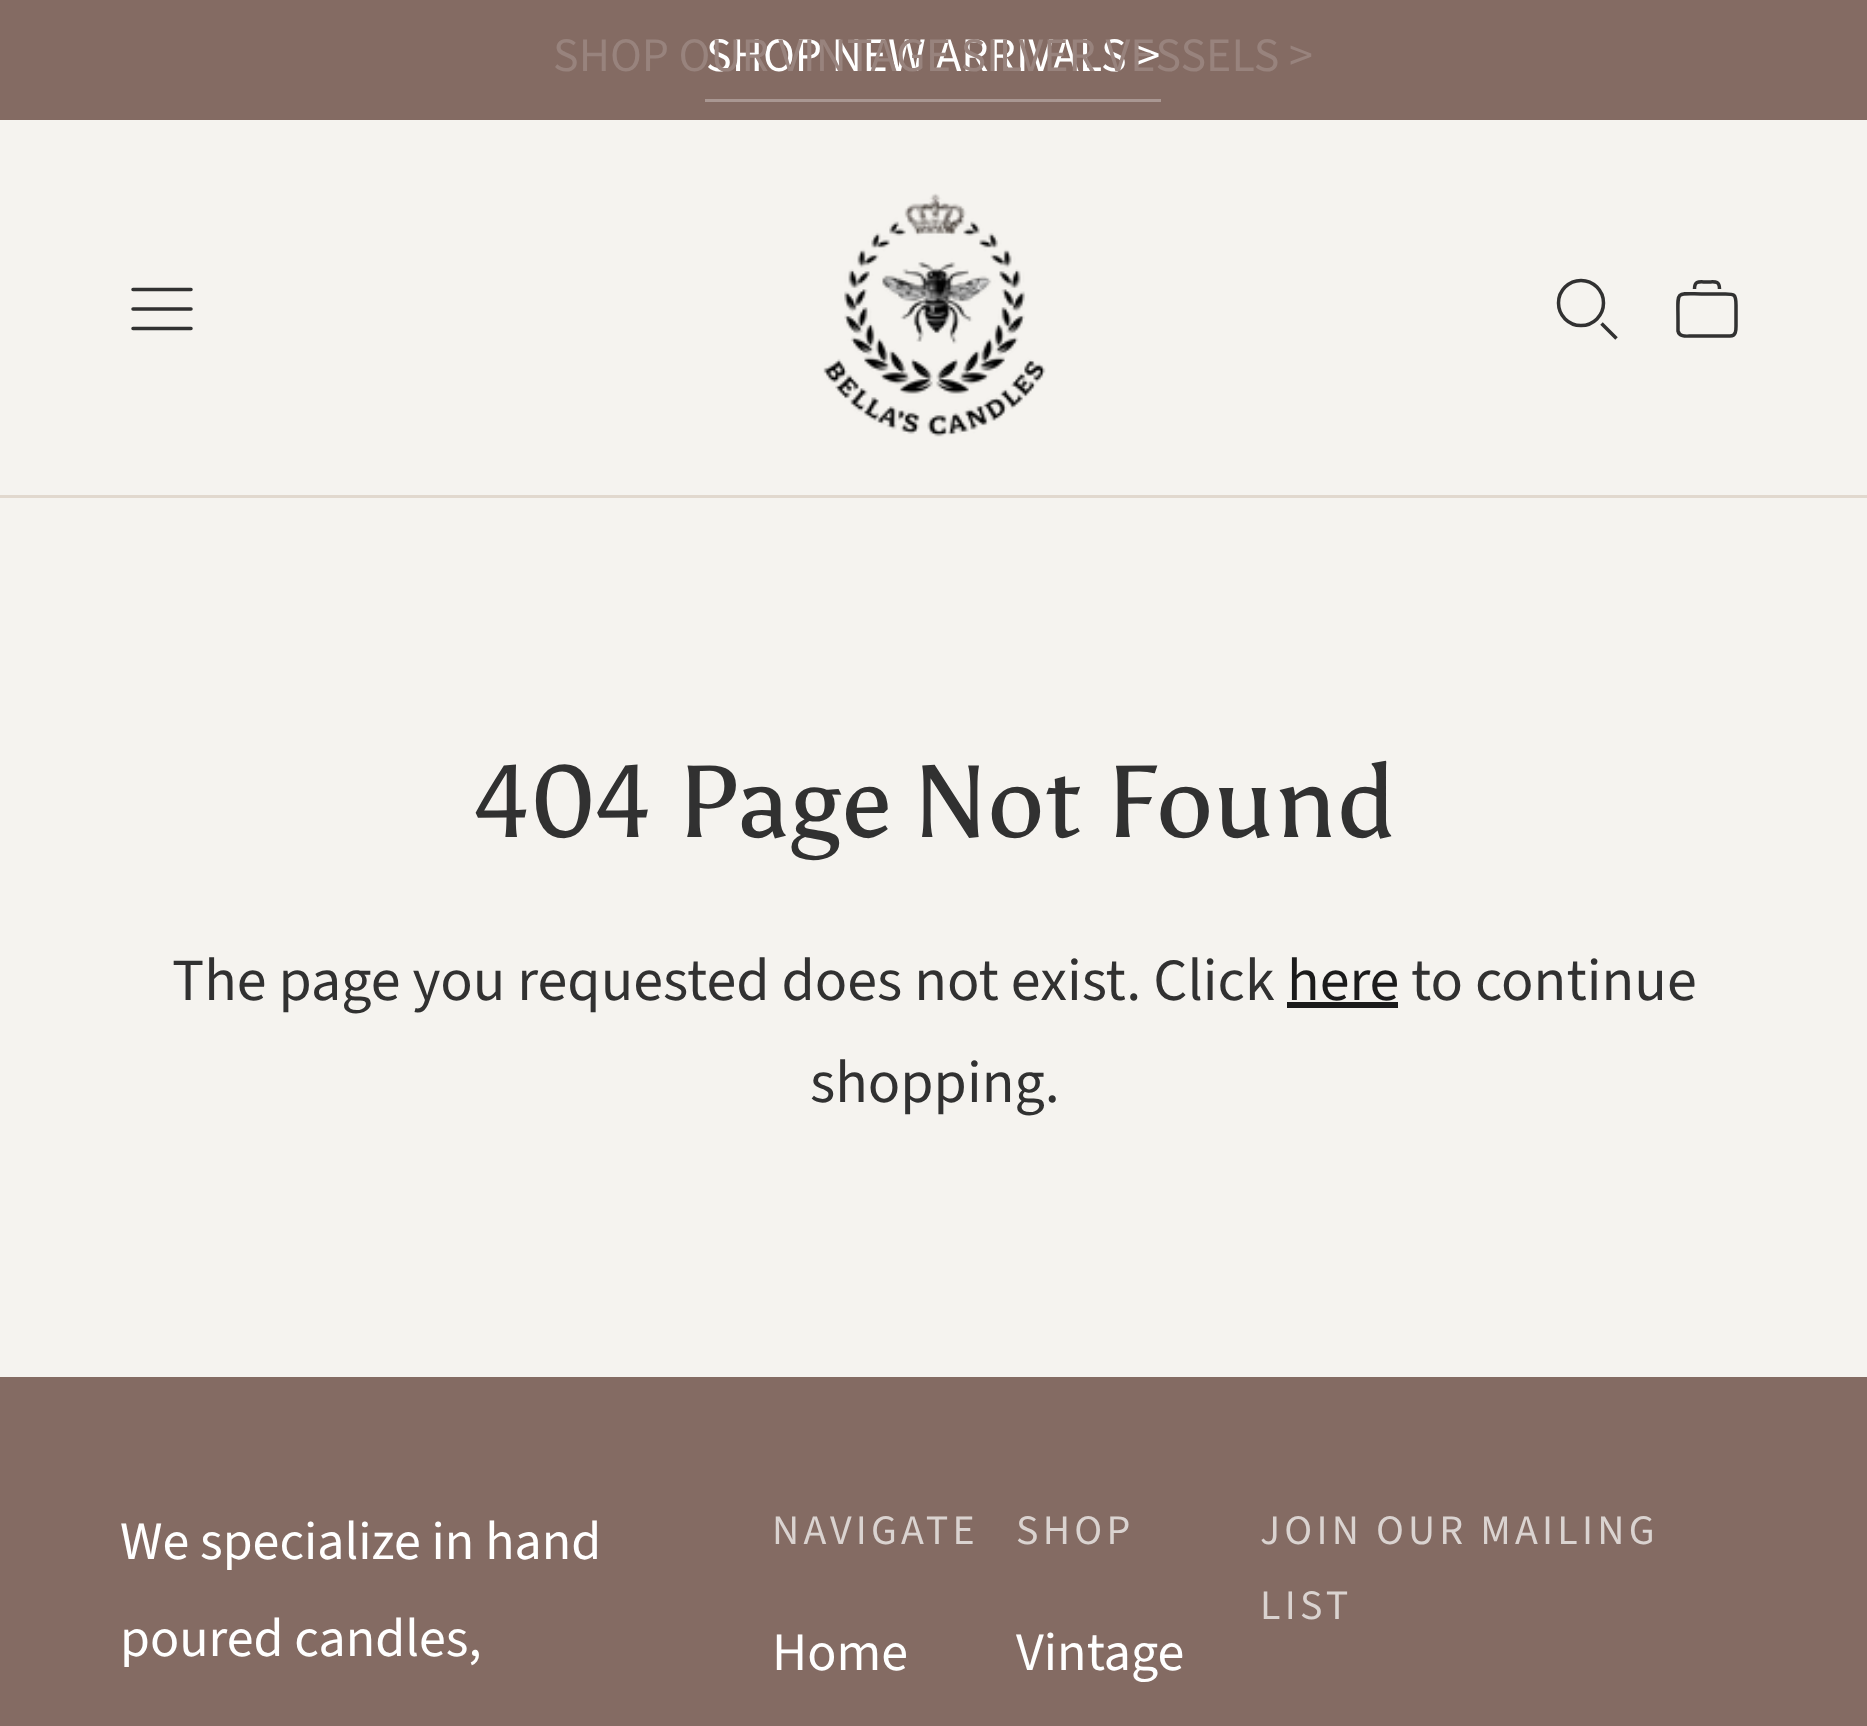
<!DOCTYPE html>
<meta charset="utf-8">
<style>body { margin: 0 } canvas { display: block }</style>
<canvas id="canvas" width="1867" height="1726"></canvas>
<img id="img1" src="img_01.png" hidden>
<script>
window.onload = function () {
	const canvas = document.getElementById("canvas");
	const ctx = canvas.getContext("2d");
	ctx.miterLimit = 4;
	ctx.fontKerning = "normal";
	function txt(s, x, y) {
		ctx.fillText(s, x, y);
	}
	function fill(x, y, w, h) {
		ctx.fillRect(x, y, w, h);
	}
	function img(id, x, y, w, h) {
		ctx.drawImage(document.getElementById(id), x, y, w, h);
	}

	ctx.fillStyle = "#F5F3EF";
	fill(0, 0, 1867, 1726);
	ctx.fillStyle = "#846B63";
	fill(0, 0, 1867, 120);
	ctx.fillStyle = "#A99792";
	fill(705, 99, 456, 3);
	ctx.fillStyle = "#E1D8CE";
	fill(0, 495, 1867, 3);
	ctx.beginPath();
	ctx.moveTo(133, 309);
	ctx.lineTo(191, 309);
	ctx.moveTo(133, 289.5);
	ctx.lineTo(191, 289.5);
	ctx.moveTo(133, 328.5);
	ctx.lineTo(191, 328.5);
	ctx.strokeStyle = "#313131";
	ctx.lineWidth = 3.5;
	ctx.lineCap = "round";
	ctx.lineJoin = "round";
	ctx.stroke();
	img("img1", 823, 193, 223, 244);
	ctx.beginPath();
	ctx.arc(1581, 303, 22.5, 0, Math.PI * 2);
	ctx.stroke();
	ctx.beginPath();
	ctx.moveTo(1601.5, 323.5);
	ctx.lineTo(1616.5, 338.5);
	ctx.lineCap = "butt";
	ctx.lineJoin = "miter";
	ctx.stroke();
	ctx.beginPath();
	ctx.moveTo(1730, 336);
	ctx.lineTo(1691.5, 336);
	ctx.bezierCurveTo(1687, 336, 1679.5, 337.5, 1678, 331);
	ctx.lineTo(1678, 320);
	ctx.bezierCurveTo(1678, 288.5, 1674, 294, 1707, 294);
	ctx.lineTo(1722.5, 294);
	ctx.bezierCurveTo(1734, 294, 1736, 293, 1736, 305);
	ctx.lineTo(1736, 325);
	ctx.bezierCurveTo(1736, 329.5, 1736.5, 336, 1730, 336);
	ctx.closePath();
	ctx.moveTo(1719.5, 289);
	ctx.bezierCurveTo(1719.5, 280, 1714.5, 282, 1707, 282);
	ctx.bezierCurveTo(1699.5, 282, 1694.5, 280, 1694.5, 289);
	ctx.stroke();
	ctx.fillStyle = "#1B1B1B";
	fill(1287, 1002, 111, 6);
	ctx.fillStyle = "#846B63";
	fill(0, 1377, 1867, 349);
	ctx.font = "48px Source Sans Pro";
	ctx.fillStyle = "#FFFFFF";
	txt("SHOP NEW ARRIVALS >", 706, 71);
	ctx.fillStyle = "#98837D";
	txt("SHOP OUR VINTAGE SILVER VESSELS >", 553, 71);
	ctx.font = "102px Asul";
	ctx.fillStyle = "#313131";
	txt("404 Page Not Found", 474, 837);
	ctx.font = "60px Source Sans Pro";
	txt("The page you requested does not exist. Click", 172, 1000);
	ctx.fillStyle = "#1B1B1B";
	txt("here", 1287, 1000);
	ctx.fillStyle = "#313131";
	txt("to continue", 1411, 1000);
	txt("shopping.", 810, 1102);
	ctx.font = "54px Source Sans Pro";
	ctx.fillStyle = "#FFFFFF";
	txt("We specialize in hand", 120, 1559);
	txt("poured candles,", 120, 1656);
	ctx.letterSpacing = "4.25px";
	ctx.font = "42px Source Sans Pro";
	ctx.fillStyle = "#DAD3D0";
	txt("NAVIGATE", 772, 1544);
	ctx.letterSpacing = "0px";
	ctx.font = "54px Source Sans Pro";
	ctx.fillStyle = "#FFFFFF";
	txt("Home", 772, 1670);
	ctx.letterSpacing = "4.25px";
	ctx.font = "42px Source Sans Pro";
	ctx.fillStyle = "#DAD3D0";
	txt("SHOP", 1016, 1544);
	ctx.letterSpacing = "0px";
	ctx.font = "54px Source Sans Pro";
	ctx.fillStyle = "#FFFFFF";
	txt("Vintage", 1016, 1670);
	ctx.letterSpacing = "4.25px";
	ctx.font = "42px Source Sans Pro";
	ctx.fillStyle = "#DAD3D0";
	txt("JOIN OUR MAILING", 1260, 1544);
	txt("LIST", 1260, 1619);
};
</script>
